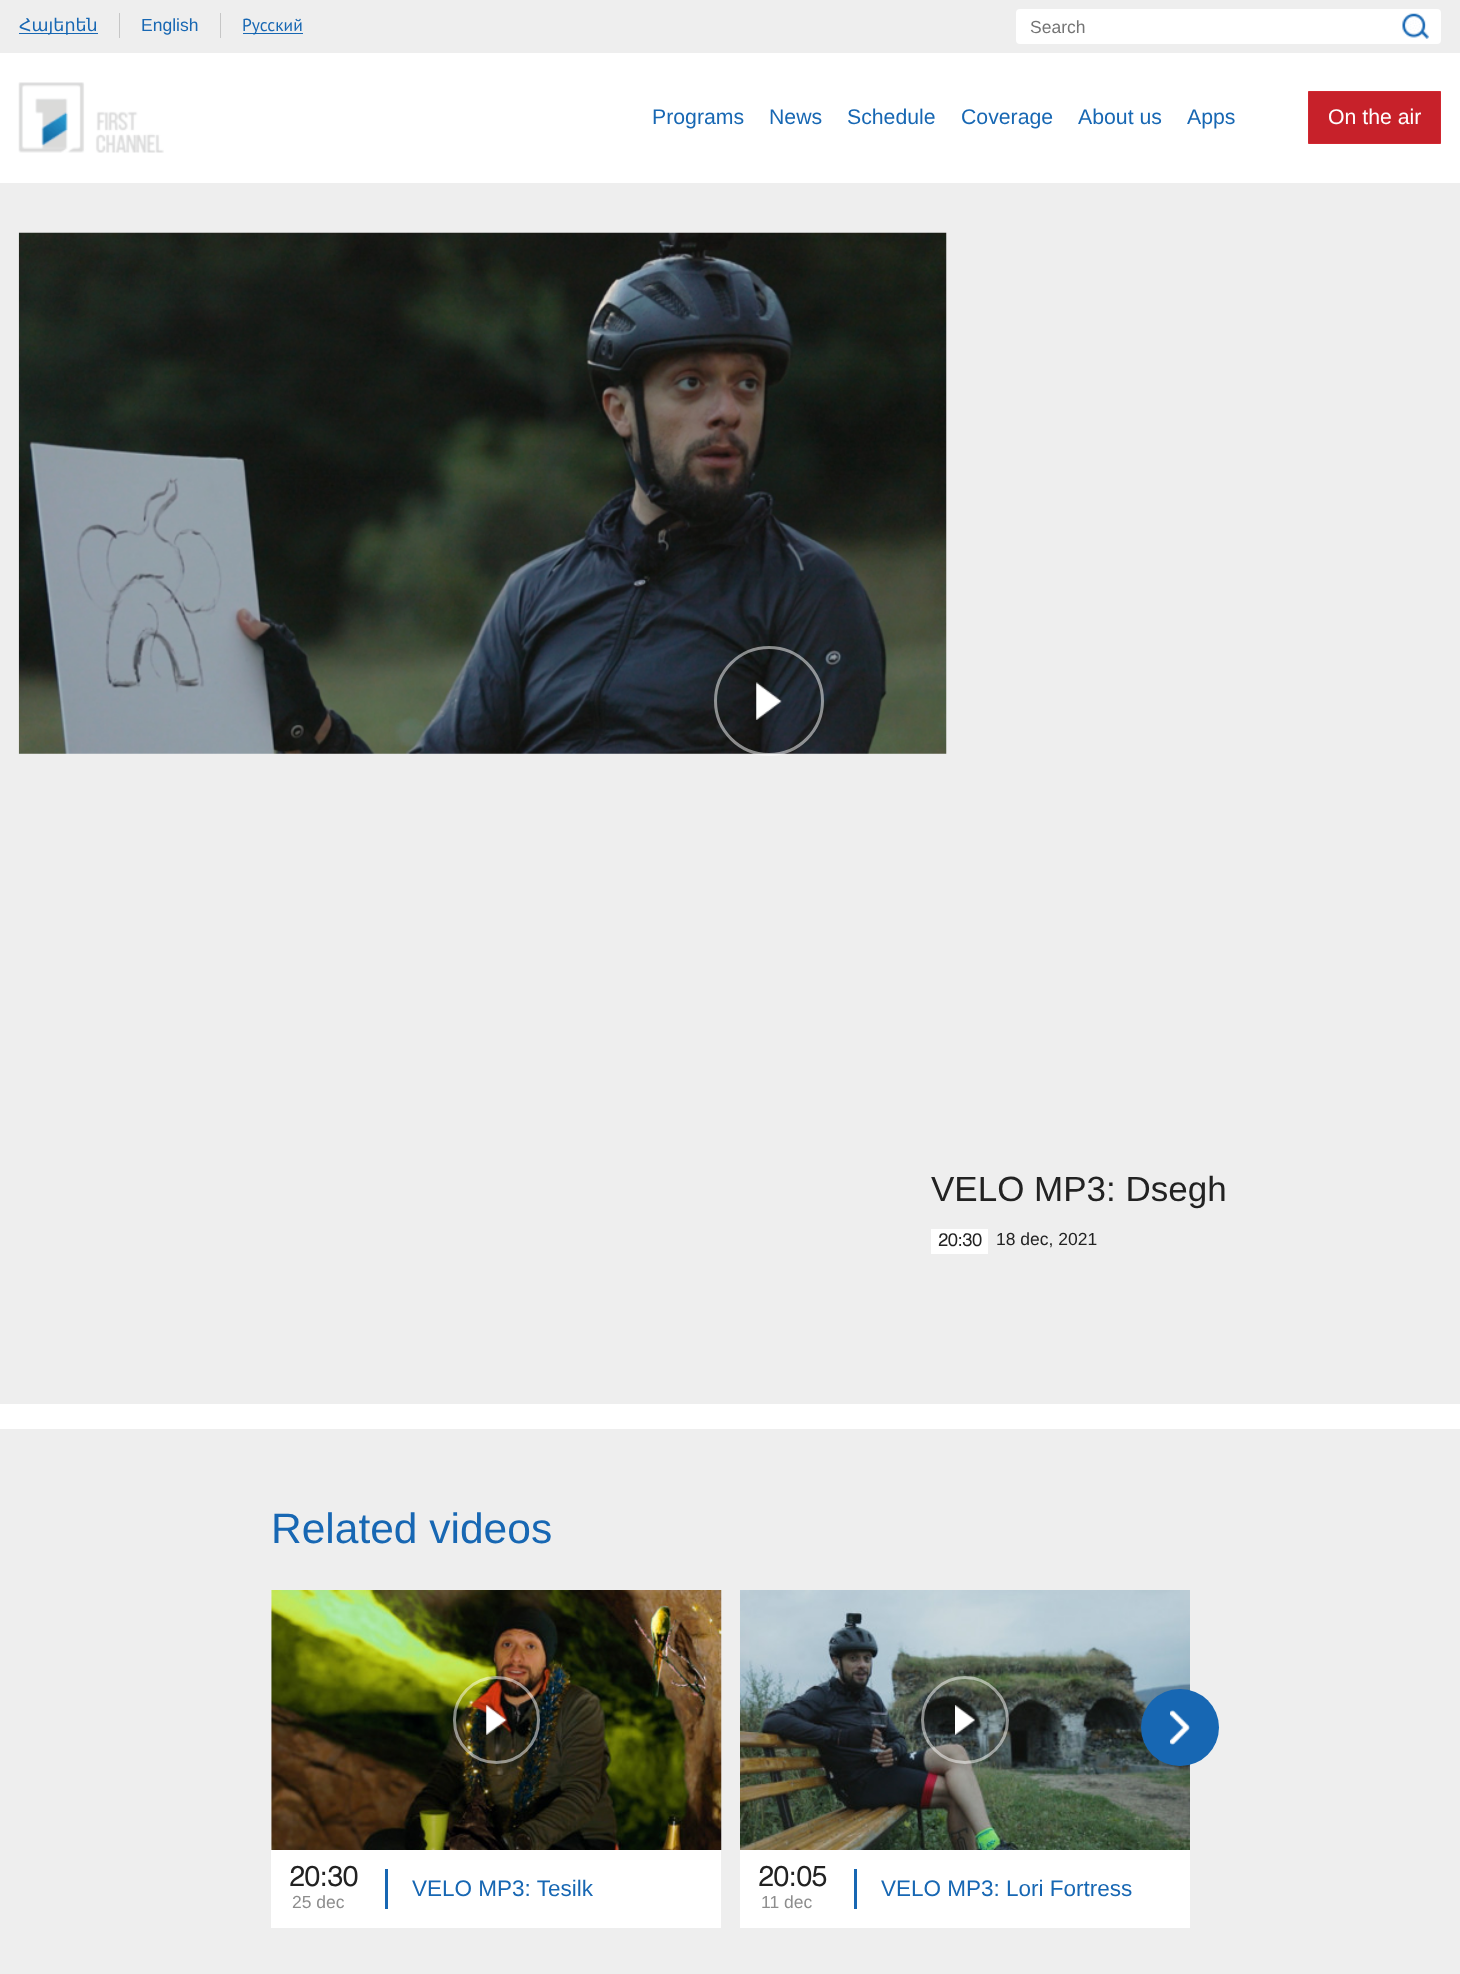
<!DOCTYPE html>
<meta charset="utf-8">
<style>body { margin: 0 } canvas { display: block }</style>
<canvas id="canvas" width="1460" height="1974"></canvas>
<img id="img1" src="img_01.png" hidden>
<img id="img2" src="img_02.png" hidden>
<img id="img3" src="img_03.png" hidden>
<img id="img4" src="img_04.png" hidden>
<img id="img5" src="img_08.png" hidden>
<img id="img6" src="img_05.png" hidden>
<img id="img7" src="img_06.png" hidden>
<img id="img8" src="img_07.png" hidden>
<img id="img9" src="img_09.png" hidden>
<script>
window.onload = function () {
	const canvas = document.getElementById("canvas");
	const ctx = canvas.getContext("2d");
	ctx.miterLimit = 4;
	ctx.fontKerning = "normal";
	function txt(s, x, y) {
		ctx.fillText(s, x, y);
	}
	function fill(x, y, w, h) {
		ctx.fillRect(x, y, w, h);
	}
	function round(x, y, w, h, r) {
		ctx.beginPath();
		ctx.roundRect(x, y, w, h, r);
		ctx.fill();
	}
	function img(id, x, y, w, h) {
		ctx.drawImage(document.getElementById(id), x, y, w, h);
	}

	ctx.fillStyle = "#FFFFFF";
	fill(0, 0, 1460, 1974);
	ctx.fillStyle = "#EEEEEE";
	fill(0, 0, 1460, 53);
	ctx.fillStyle = "#1767B3";
	fill(19, 33, 79, 1);
	ctx.fillStyle = "#C6C6C6";
	fill(119, 13, 1, 25);
	fill(220, 13, 1, 25);
	ctx.fillStyle = "#1767B3";
	fill(243, 33, 60, 1);
	ctx.fillStyle = "#FFFFFF";
	round(1016, 9, 425, 35, 4);
	img("img1", 1402, 13, 27, 26);
	img("img2", 18, 82, 146, 71);
	ctx.fillStyle = "#C7212A";
	ctx.beginPath();
	ctx.rect(1308.5, 91.5, 132, 52);
	ctx.fill();
	ctx.strokeStyle = "#D22730";
	ctx.stroke();
	ctx.fillStyle = "#EEEEEE";
	fill(0, 183, 1460, 1221);
	img("img3", 18, 232, 929, 522);
	img("img4", 756, 682, 26, 38);
	ctx.beginPath();
	ctx.arc(769, 701, 53.5, 0, Math.PI * 2);
	ctx.strokeStyle = "rgba(255, 255, 255, 0.5)";
	ctx.lineWidth = 3;
	ctx.stroke();
	ctx.fillStyle = "#FFFFFF";
	fill(931, 1229, 57, 25);
	ctx.fillStyle = "#EEEEEE";
	fill(0, 1429, 1460, 545);
	img("img5", 740, 1590, 450, 260);
	ctx.fillStyle = "#1767B3";
	round(1141, 1689, 78, 77, 38.5);
	img("img6", 1170, 1710, 20, 35);
	img("img7", 271, 1590, 451, 260);
	img("img8", 486, 1705, 21, 30);
	ctx.beginPath();
	ctx.roundRect(454.5, 1677.5, 84, 85, 42);
	ctx.stroke();
	ctx.fillStyle = "#FFFFFF";
	fill(271, 1850, 450, 78);
	ctx.fillStyle = "#1767B3";
	fill(385, 1869, 3, 40);
	img("img9", 955, 1705, 20, 30);
	ctx.beginPath();
	ctx.arc(965, 1720, 42.5, 0, Math.PI * 2);
	ctx.stroke();
	ctx.fillStyle = "#FFFFFF";
	fill(740, 1850, 450, 78);
	ctx.fillStyle = "#1767B3";
	fill(854, 1869, 3, 40);
	ctx.font = "17.5px DejaVu Sans";
	txt("Հայերեն", 19, 31);
	ctx.font = "17.5px Liberation Sans";
	txt("English", 141, 31);
	ctx.font = "17.5px PT Sans";
	txt("Русский", 242, 31);
	ctx.font = "17.5px Liberation Sans";
	ctx.fillStyle = "#757575";
	txt("Search", 1030, 33);
	ctx.font = "21.25px Liberation Sans";
	ctx.fillStyle = "#1767B3";
	txt("Programs", 652, 124);
	txt("News", 769, 124);
	txt("Schedule", 847, 124);
	txt("Coverage", 961, 124);
	txt("About us", 1078, 124);
	txt("Apps", 1187, 124);
	ctx.fillStyle = "#FFFFFF";
	txt("On the air", 1328, 124);
	ctx.font = "35px Liberation Sans";
	ctx.fillStyle = "#222222";
	txt("VELO MP3: Dsegh", 931, 1201);
	ctx.font = "bold 17.5px Helvetica";
	txt("20:30", 938, 1246);
	ctx.font = "17.5px Liberation Sans";
	txt("18 dec, 2021", 996, 1245);
	ctx.font = "42.5px Liberation Sans";
	ctx.fillStyle = "#1767B3";
	txt("Related videos", 271, 1543);
	ctx.font = "bold 27.5px Helvetica";
	ctx.fillStyle = "#222222";
	txt("20:30", 289, 1886);
	ctx.font = "17.5px Liberation Sans";
	ctx.fillStyle = "#8D8D8D";
	txt("25 dec", 292, 1908);
	ctx.font = "22.5px Liberation Sans";
	ctx.fillStyle = "#1767B3";
	txt("VELO MP3: Tesilk", 412, 1896);
	ctx.font = "bold 27.5px Helvetica";
	ctx.fillStyle = "#222222";
	txt("20:05", 758, 1886);
	ctx.font = "17.5px Liberation Sans";
	ctx.fillStyle = "#8D8D8D";
	txt("11 dec", 761, 1908);
	ctx.font = "22.5px Liberation Sans";
	ctx.fillStyle = "#1767B3";
	txt("VELO MP3: Lori Fortress", 881, 1896);
};
</script>
